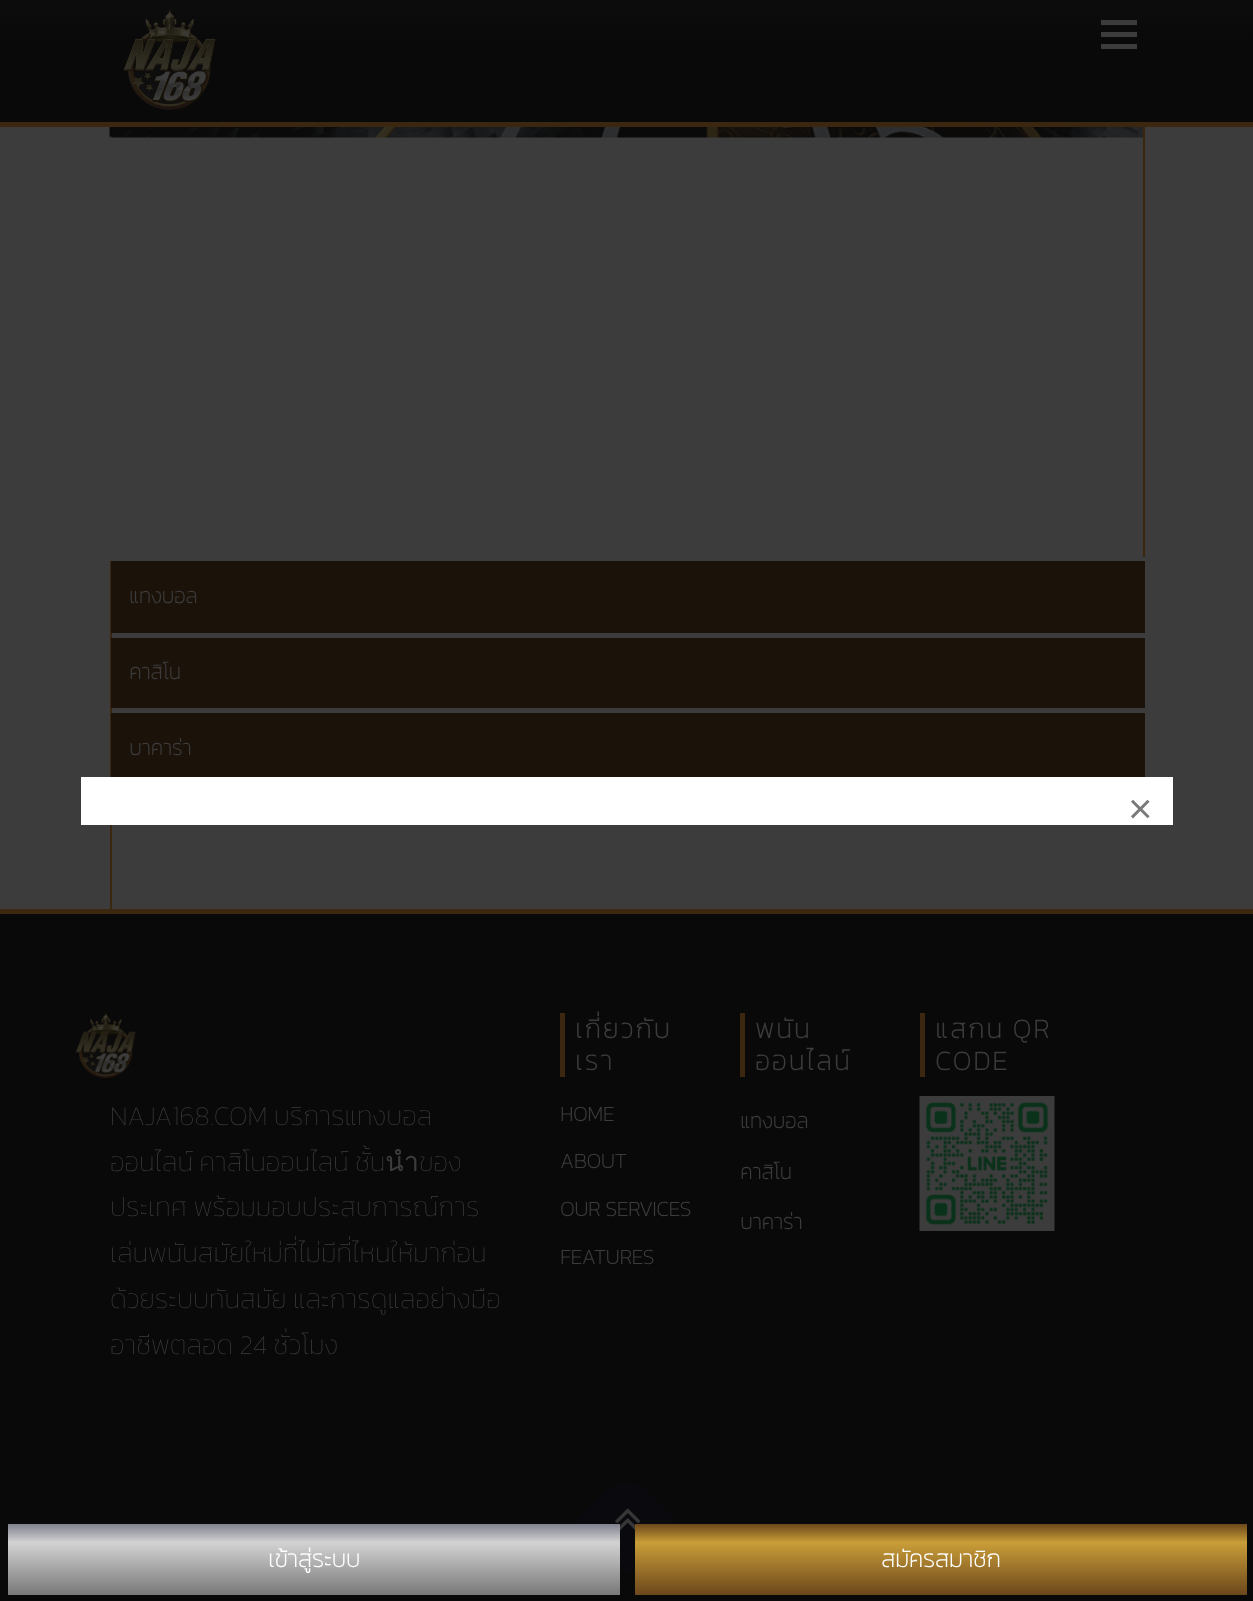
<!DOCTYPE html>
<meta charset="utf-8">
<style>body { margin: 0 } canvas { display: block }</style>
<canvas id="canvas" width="1253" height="1601"></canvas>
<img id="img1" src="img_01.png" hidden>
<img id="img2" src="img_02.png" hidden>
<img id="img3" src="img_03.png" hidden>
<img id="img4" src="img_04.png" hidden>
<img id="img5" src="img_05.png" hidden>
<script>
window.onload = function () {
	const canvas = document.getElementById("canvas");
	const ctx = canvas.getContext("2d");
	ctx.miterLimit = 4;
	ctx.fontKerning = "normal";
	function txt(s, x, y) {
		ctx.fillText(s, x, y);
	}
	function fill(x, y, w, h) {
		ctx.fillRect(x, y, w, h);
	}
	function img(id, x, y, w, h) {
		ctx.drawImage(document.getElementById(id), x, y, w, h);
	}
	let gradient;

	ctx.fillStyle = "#3C3C3C";
	fill(0, 0, 1253, 1601);
	gradient = ctx.createLinearGradient(627, 122, 627, 0);
	gradient.addColorStop(0, "#090909");
	gradient.addColorStop(0.66, "#090909");
	gradient.addColorStop(0.92, "#0C0C0C");
	gradient.addColorStop(1, "#0C0C0C");
	ctx.fillStyle = gradient;
	fill(0, 0, 1253, 122);
	ctx.fillStyle = "#3B270F";
	fill(0, 122, 1253, 5);
	img("img1", 123, 10, 93, 100);
	ctx.fillStyle = "#3C3C3C";
	fill(1101, 32, 36, 5);
	fill(1101, 20, 36, 5);
	fill(1101, 44, 36, 5);
	ctx.fillStyle = "#3B270F";
	fill(1143, 127, 2, 430);
	img("img2", 109, 127, 1034, 11);
	fill(110, 561, 2, 348);
	ctx.fillStyle = "#1B120A";
	fill(111, 561, 1034, 72);
	fill(111, 638, 1034, 70);
	fill(111, 713, 1034, 64);
	ctx.fillStyle = "#090909";
	fill(0, 914, 1253, 687);
	ctx.fillStyle = "#3C2810";
	fill(0, 909, 1253, 5);
	fill(560, 1013, 5, 64);
	fill(740, 1013, 5, 64);
	fill(920, 1013, 5, 64);
	img("img3", 919, 1096, 136, 135);
	img("img4", 75, 1012, 61, 67);
	ctx.fillStyle = "#09090E";
	ctx.beginPath();
	ctx.moveTo(574, 1523);
	ctx.lineTo(606, 1491);
	ctx.bezierCurveTo(618, 1479, 636, 1479, 648, 1491);
	ctx.lineTo(680, 1523);
	ctx.lineTo(627, 1576);
	ctx.closePath();
	ctx.fill();
	img("img5", 615, 1508, 26, 23);
	ctx.fillStyle = "#FFFFFF";
	fill(81, 777, 1092, 48);
	gradient = ctx.createLinearGradient(314, 1595, 314, 1524);
	gradient.addColorStop(0, "#787878");
	gradient.addColorStop(0.74, "#D3D3D3");
	gradient.addColorStop(1, "#7F818D");
	ctx.fillStyle = gradient;
	fill(8, 1524, 612, 71);
	gradient = ctx.createLinearGradient(941, 1595, 941, 1524);
	gradient.addColorStop(0, "#6C471C");
	gradient.addColorStop(0.74, "#C99D38");
	gradient.addColorStop(1, "#6C471C");
	ctx.fillStyle = gradient;
	fill(635, 1524, 612, 71);
	ctx.font = "bold 21px Kanit";
	ctx.fillStyle = "#3C3C3C";
	txt("แทงบอล", 129, 603);
	txt("คาสิโน", 129, 679);
	txt("บาคาร่า", 129, 755);
	ctx.letterSpacing = "2.25px";
	ctx.font = "bold 27px Kanit";
	txt("เกี่ยวกับ", 575, 1038);
	txt("เรา", 575, 1070);
	ctx.letterSpacing = "0px";
	ctx.font = "bold 21px Kanit";
	txt("HOME", 560, 1121);
	txt("ABOUT", 560, 1168);
	txt("OUR SERVICES", 560, 1216);
	txt("FEATURES", 560, 1264);
	ctx.letterSpacing = "2.25px";
	ctx.font = "bold 27px Kanit";
	txt("พนัน", 755, 1038);
	txt("ออนไลน์", 755, 1070);
	ctx.letterSpacing = "0px";
	ctx.font = "bold 21px Kanit";
	txt("แทงบอล", 740, 1128);
	txt("คาสิโน", 740, 1179);
	txt("บาคาร่า", 740, 1229);
	ctx.letterSpacing = "2.25px";
	ctx.font = "bold 27px Kanit";
	txt("แสกน QR", 935, 1038);
	txt("CODE", 935, 1070);
	ctx.letterSpacing = "0px";
	ctx.font = "100 27px Kanit";
	txt("NAJA168.COM บริการแทงบอล", 110, 1125);
	txt("ออนไลน์ คาสิโนออนไลน์ ชั้นนำของ", 110, 1171);
	txt("ประเทศ พร้อมมอบประสบการณ์การ", 110, 1216);
	txt("เล่นพนันสมัยใหม่ที่ไม่มีที่ไหนให้มาก่อน", 110, 1262);
	txt("ด้วยระบบทันสมัย และการดูแลอย่างมือ", 110, 1308);
	txt("อาชีพตลอด 24 ชั่วโมง", 110, 1354);
	ctx.font = "42px Liberation Sans";
	ctx.fillStyle = "#7A7A7A";
	txt("×", 1128, 823);
	ctx.font = "bold 24px Kanit";
	ctx.fillStyle = "#FFFFFF";
	txt("เข้าสู่ระบบ", 268, 1567);
	txt("สมัครสมาชิก", 881, 1567);
};
</script>
